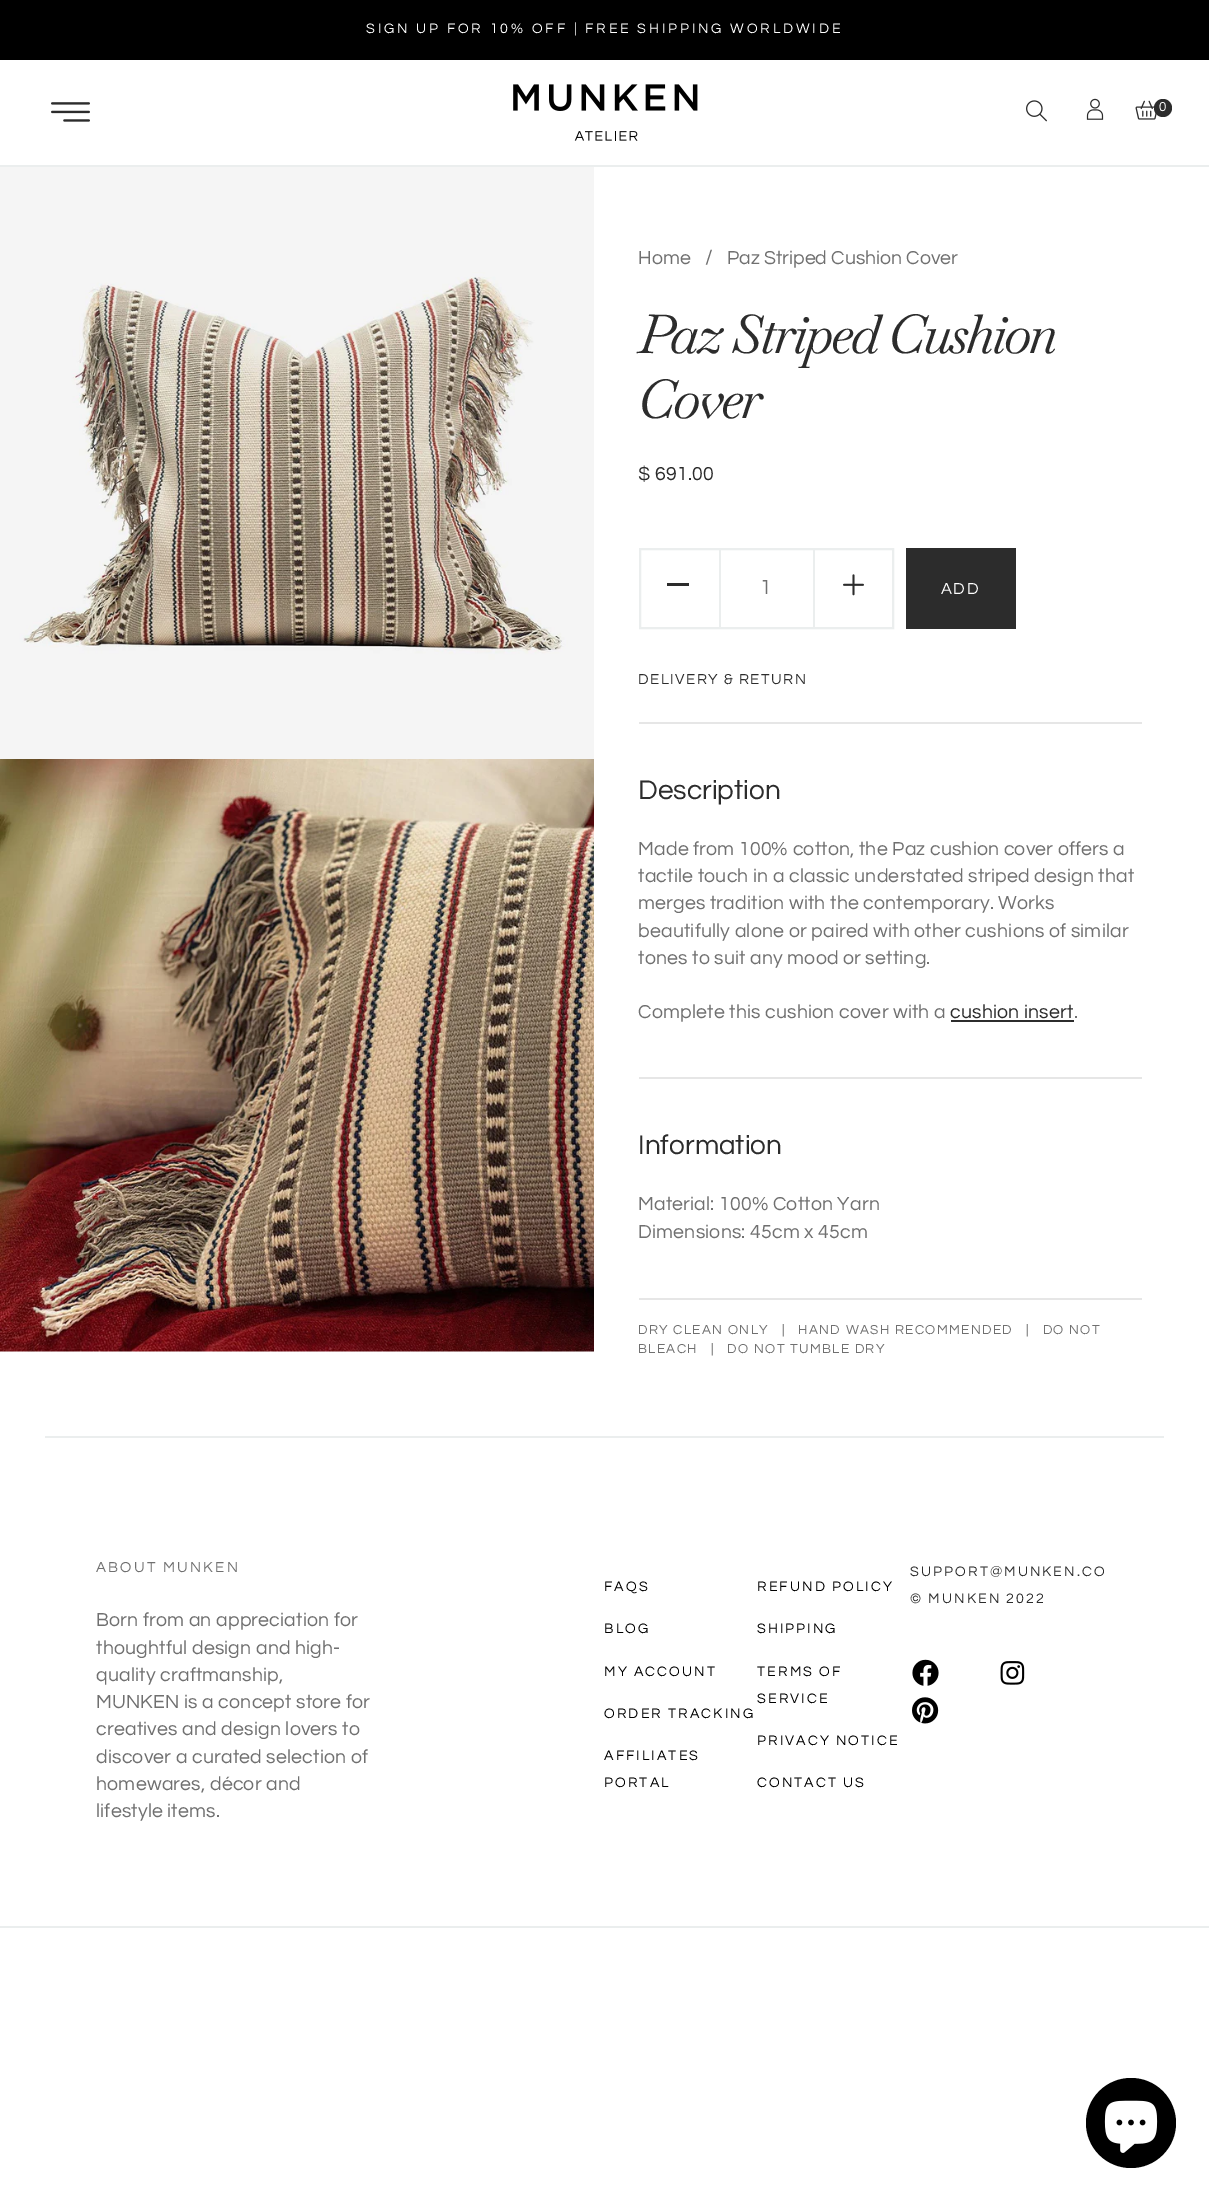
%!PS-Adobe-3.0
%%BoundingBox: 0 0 1209 2199
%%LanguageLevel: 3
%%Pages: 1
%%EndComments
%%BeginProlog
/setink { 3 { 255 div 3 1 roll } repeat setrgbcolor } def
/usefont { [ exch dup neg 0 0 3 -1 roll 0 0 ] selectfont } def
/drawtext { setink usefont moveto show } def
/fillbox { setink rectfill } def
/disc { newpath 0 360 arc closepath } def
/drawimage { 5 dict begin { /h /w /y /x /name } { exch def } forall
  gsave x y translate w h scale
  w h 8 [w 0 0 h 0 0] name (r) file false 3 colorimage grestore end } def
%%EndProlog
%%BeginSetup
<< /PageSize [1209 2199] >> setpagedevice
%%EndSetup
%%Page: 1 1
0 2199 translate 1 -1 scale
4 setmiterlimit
0 0 1209 2199 255 255 255 fillbox
0 165 1209 2 235 238 238 fillbox
0 0 1209 60 0 0 0 fillbox
/Questrial-Regular 14.25 usefont
255 255 255 setink
366 33 moveto 2.85 0 (SIGN UP FOR 10% OFF | FREE SHIPPING WORLDWIDE) ashow
(assets/img1.rgb) 51 102 39 20 drawimage
(assets/img2.rgb) 513 84 185 57 drawimage
(assets/img3.rgb) 1026 100 21 22 drawimage
(assets/img4.rgb) 1086 98 18 22 drawimage
(assets/img5.rgb) 1135 100 22 20 drawimage
44 44 44 setink
1163 108 9 disc fill
(0) 1159 111 /Questrial-Regular 13.5 255 255 255 drawtext
(assets/img6.rgb) 0 167 594 592 drawimage
(assets/img7.rgb) 0 759 594 593 drawimage
(Home) 638 264 /Questrial-Regular 19.5 112 112 112 drawtext
(/) 705 264 /Questrial-Regular 21 112 112 112 drawtext
(Paz Striped Cushion Cover) 727 264 /Questrial-Regular 19.5 112 112 112 drawtext
/Baskervville-Italic 54 usefont
44 44 44 setink
638 353 moveto -2.75 0 (Paz Striped Cushion) ashow
638 418 moveto -2.75 0 (Cover) ashow
/Questrial-Regular 19.5 usefont
638 480 moveto 0.2 0 ($ 691.00) ashow
235 238 238 setink
2 setlinewidth
640 549 253 79 rectstroke
719 548 2 81 235 238 238 fillbox
667 583 22 3 44 44 44 fillbox
(1) 760 594 /Questrial-Regular 21 112 112 112 drawtext
813 548 2 81 235 238 238 fillbox
(assets/img8.rgb) 843 574 21 22 drawimage
906 548 110 81 44 44 44 fillbox
/Questrial-Regular 16.5 usefont
255 255 255 setink
941 594 moveto 1.5 0 (ADD) ashow
/Questrial-Regular 15 usefont
44 44 44 setink
638 684 moveto 1.5 0 (DELIVERY & RETURN) ashow
639 722 503 2 230 230 230 fillbox
(Description) 638 799 /Questrial-Regular 28 44 44 44 drawtext
/Questrial-Regular 19.5 usefont
112 112 112 setink
638 855 moveto 0.2 0 (Made from 100% cotton, the Paz cushion cover offers a) ashow
638 882 moveto 0.2 0 (tactile touch in a classic understated striped design that) ashow
638 909 moveto 0.2 0 (merges tradition with the contemporary. Works) ashow
638 937 moveto 0.2 0 (beautifully alone or paired with other cushions of similar) ashow
638 964 moveto 0.2 0 (tones to suit any mood or setting.) ashow
638 1018 moveto 0.2 0 (Complete this cushion cover with a) ashow
44 44 44 setink
950 1018 moveto 0.2 0 (cushion insert) ashow
951 1020 123 2 44 44 44 fillbox
112 112 112 setink
1074 1018 moveto 0.2 0 (.) ashow
639 1077 503 2 230 230 230 fillbox
(Information) 638 1154 /Questrial-Regular 28 44 44 44 drawtext
/Questrial-Regular 19.5 usefont
112 112 112 setink
638 1210 moveto 0.2 0 (Material: 100% Cotton Yarn) ashow
638 1238 moveto 0.2 0 (Dimensions: 45cm x 45cm) ashow
639 1298 503 2 230 230 230 fillbox
/Questrial-Regular 13.5 usefont
112 112 112 setink
638 1334 moveto 1.35 0 (DRY CLEAN ONLY   |   HAND WASH RECOMMENDED   |   DO NOT) ashow
638 1353 moveto 1.35 0 (BLEACH   |   DO NOT TUMBLE DRY) ashow
0 1926 1209 2 235 238 238 fillbox
45 1436 1119 2 235 238 238 fillbox
/Questrial-Regular 15 usefont
112 112 112 setink
96 1572 moveto 2.25 0 (ABOUT MUNKEN) ashow
/Questrial-Regular 19.5 usefont
96 1626 moveto 0.2 0 (Born from an appreciation for) ashow
96 1654 moveto 0.2 0 (thoughtful design and high-) ashow
96 1681 moveto 0.2 0 (quality craftmanship,) ashow
96 1708 moveto 0.2 0 (MUNKEN is a concept store for) ashow
96 1735 moveto 0.2 0 (creatives and design lovers to) ashow
96 1763 moveto 0.2 0 (discover a curated selection of) ashow
96 1790 moveto 0.2 0 (homewares, décor and) ashow
96 1817 moveto 0.2 0 (lifestyle items.) ashow
/Questrial-Regular 14.25 usefont
0 0 0 setink
604 1591 moveto 2.1 0 (FAQS) ashow
604 1633 moveto 2.1 0 (BLOG) ashow
604 1676 moveto 2.1 0 (MY ACCOUNT) ashow
604 1718 moveto 2.1 0 (ORDER TRACKING) ashow
604 1760 moveto 2.1 0 (AFFILIATES) ashow
604 1787 moveto 2.1 0 (PORTAL) ashow
757 1591 moveto 2.1 0 (REFUND POLICY) ashow
757 1633 moveto 2.1 0 (SHIPPING) ashow
757 1676 moveto 2.1 0 (TERMS OF) ashow
757 1703 moveto 2.1 0 (SERVICE) ashow
757 1745 moveto 2.1 0 (PRIVACY NOTICE) ashow
757 1787 moveto 2.1 0 (CONTACT US) ashow
44 44 44 setink
910 1576 moveto 2.1 0 (SUPPORT@MUNKEN.CO) ashow
910 1603 moveto 2.1 0 (© MUNKEN 2022) ashow
(assets/img9.rgb) 912 1659 27 27 drawimage
(assets/img10.rgb) 1000 1661 25 24 drawimage
(assets/img11.rgb) 912 1697 27 27 drawimage
0 0 0 setink
1131 2123 45 disc fill
(assets/img12.rgb) 1104 2100 54 53 drawimage
showpage
%%EOF
